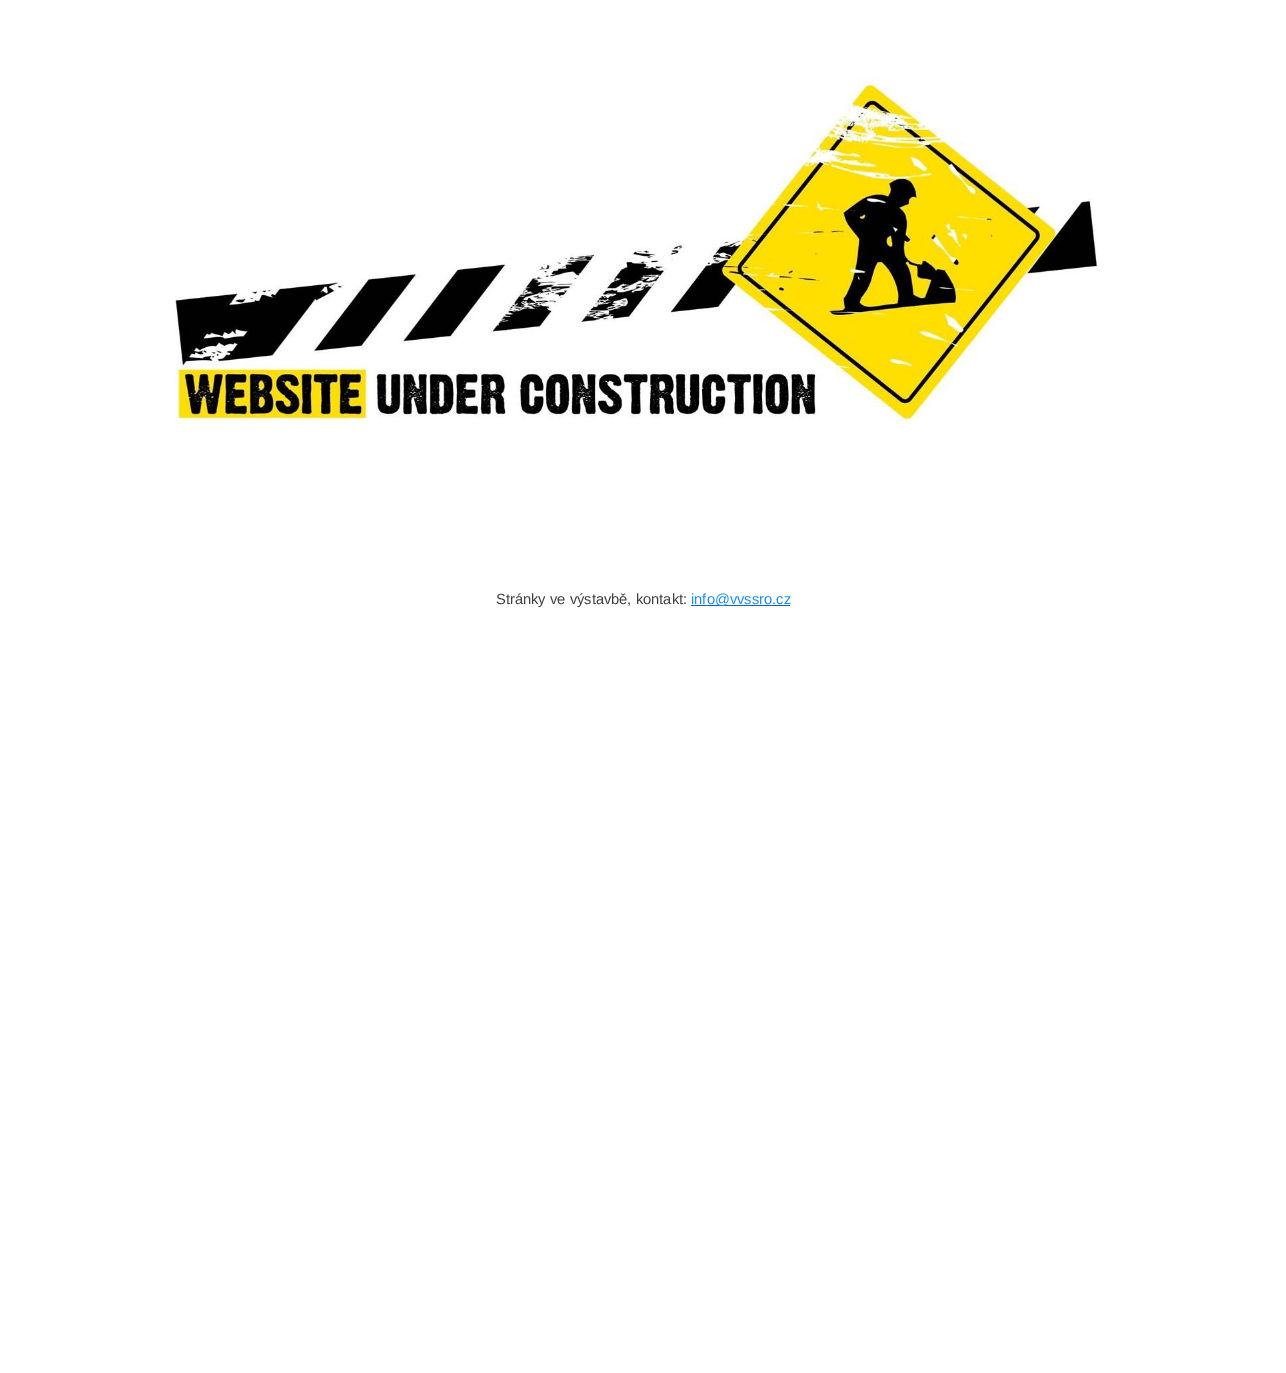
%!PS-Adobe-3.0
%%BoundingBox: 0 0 1286 1373
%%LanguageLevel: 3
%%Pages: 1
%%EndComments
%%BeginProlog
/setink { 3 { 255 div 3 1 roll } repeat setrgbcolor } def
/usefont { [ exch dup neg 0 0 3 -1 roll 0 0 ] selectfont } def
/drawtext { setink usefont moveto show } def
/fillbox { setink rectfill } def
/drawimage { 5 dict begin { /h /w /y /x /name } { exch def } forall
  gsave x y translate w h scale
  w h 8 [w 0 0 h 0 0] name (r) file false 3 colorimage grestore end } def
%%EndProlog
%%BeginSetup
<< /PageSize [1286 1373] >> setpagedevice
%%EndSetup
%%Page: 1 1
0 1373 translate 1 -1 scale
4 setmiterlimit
0 0 1286 1373 255 255 255 fillbox
(assets/img1.rgb) 175 76 924 350 drawimage
(Stránky ve výstavbě, kontakt:) 496 604 /LiberationSans-Regular 14.7 64 64 64 drawtext
691 605 99 1 5 99 193 fillbox
(info@vvssro.cz) 691 604 /LiberationSans-Regular 14.7 27 138 249 drawtext
showpage
%%EOF
